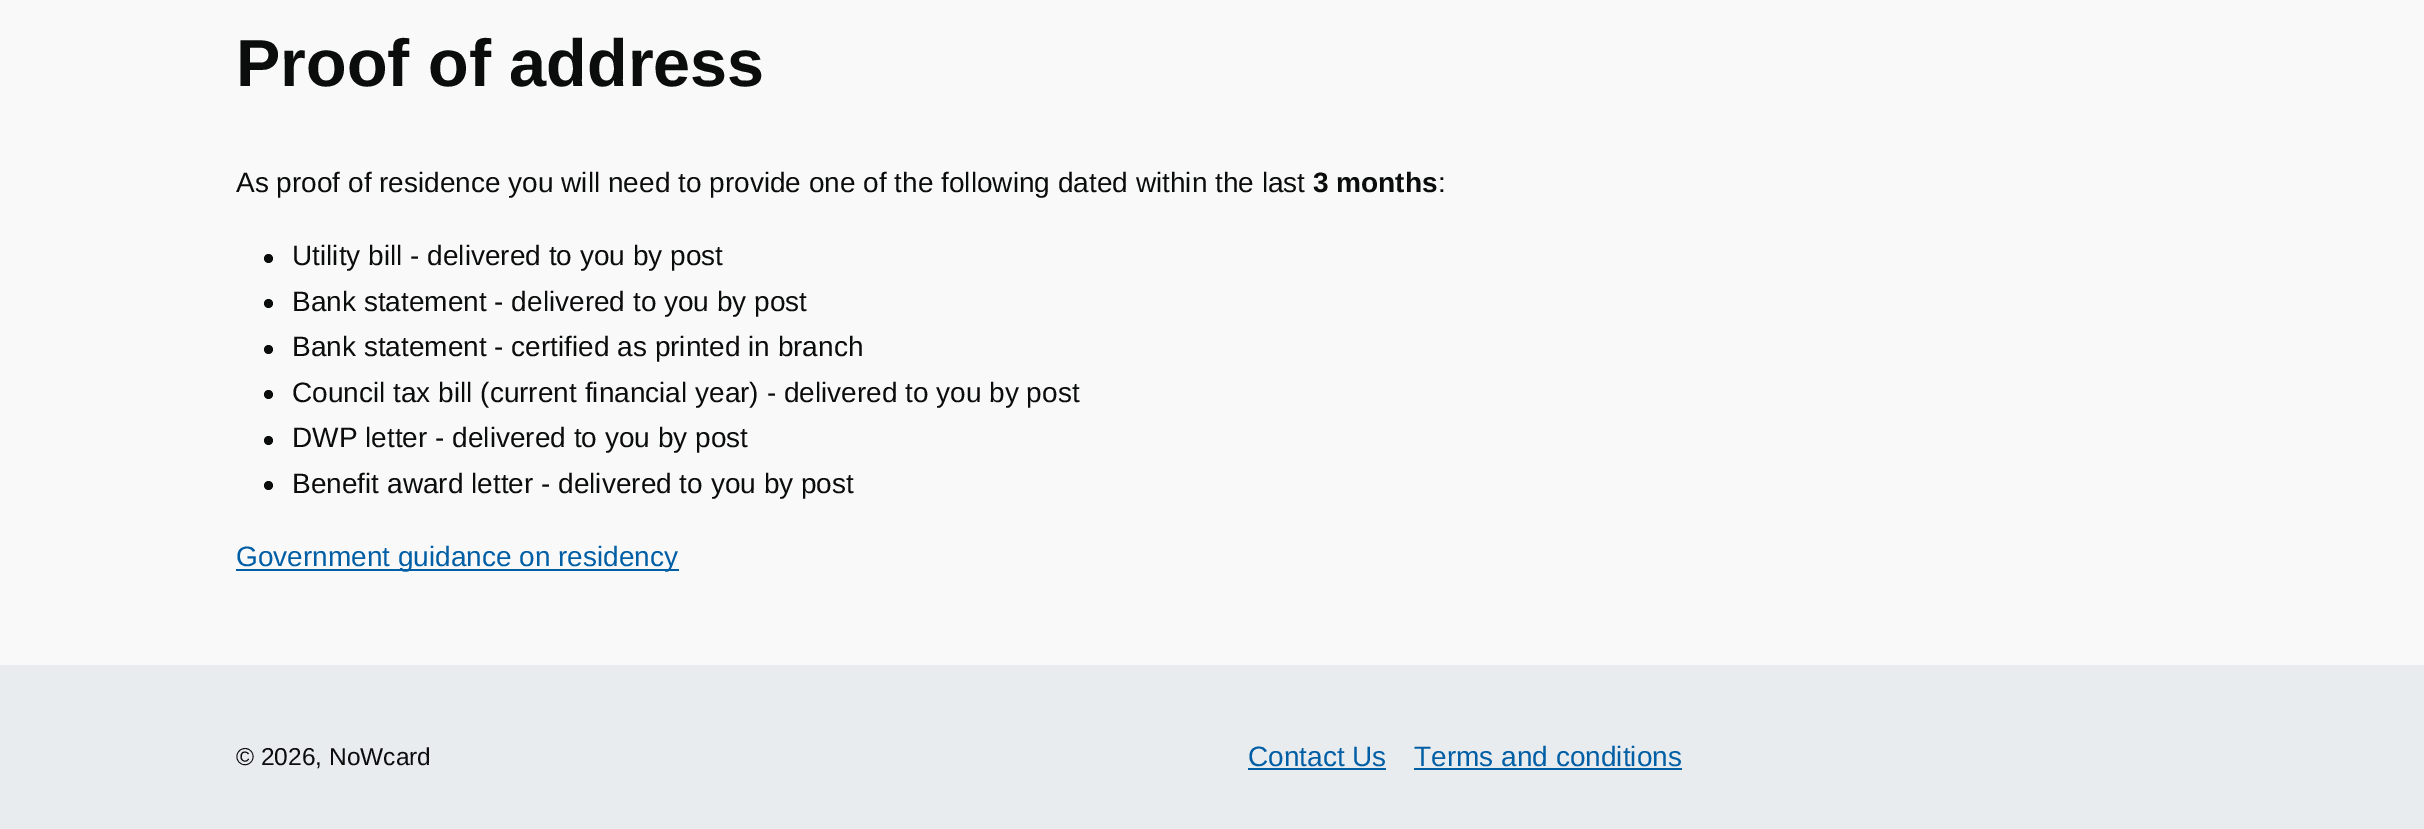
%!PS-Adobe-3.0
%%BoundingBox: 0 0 2424 829
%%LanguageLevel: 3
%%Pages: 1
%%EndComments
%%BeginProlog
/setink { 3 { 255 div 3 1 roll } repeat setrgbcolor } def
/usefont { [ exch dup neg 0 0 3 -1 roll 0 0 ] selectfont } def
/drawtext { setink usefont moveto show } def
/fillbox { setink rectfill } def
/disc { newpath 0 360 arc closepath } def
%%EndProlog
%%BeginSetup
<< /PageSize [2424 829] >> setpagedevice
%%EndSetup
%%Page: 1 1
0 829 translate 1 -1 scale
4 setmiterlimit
0 0 2424 829 249 249 249 fillbox
(Proof of address) 236 86 /LiberationSans-Bold 66.5 11 12 12 drawtext
(As proof of residence you will need to provide one of the following dated within the last) 236 192 /LiberationSans-Regular 28 11 12 12 drawtext
(3 months) 1313 192 /LiberationSans-Bold 28 11 12 12 drawtext
(:) 1438 192 /LiberationSans-Regular 28 11 12 12 drawtext
268.5 258.5 4.5 disc fill
(Utility bill - delivered to you by post) 292 265 /LiberationSans-Regular 28 11 12 12 drawtext
268.5 303.5 4.5 disc fill
(Bank statement - delivered to you by post) 292 311 /LiberationSans-Regular 28 11 12 12 drawtext
268.5 349.5 4.5 disc fill
(Bank statement - certified as printed in branch) 292 356 /LiberationSans-Regular 28 11 12 12 drawtext
268.5 394.5 4.5 disc fill
(Council tax bill \(current financial year\) - delivered to you by post) 292 402 /LiberationSans-Regular 28 11 12 12 drawtext
268.5 440.5 4.5 disc fill
(DWP letter - delivered to you by post) 292 447 /LiberationSans-Regular 28 11 12 12 drawtext
268.5 485.5 4.5 disc fill
(Benefit award letter - delivered to you by post) 292 493 /LiberationSans-Regular 28 11 12 12 drawtext
236 569 443 2 0 94 165 fillbox
(Government guidance on residency) 236 566 /LiberationSans-Regular 28 0 94 165 drawtext
0 665 2424 164 233 236 239 fillbox
(© 2026, NoWcard) 236 765 /LiberationSans-Regular 24.5 11 12 12 drawtext
(Contact Us) 1248 766 /LiberationSans-Regular 28 0 94 165 drawtext
1248 768 138 2 0 94 165 fillbox
(Terms and conditions) 1414 766 /LiberationSans-Regular 28 0 94 165 drawtext
1414 768 268 2 0 94 165 fillbox
showpage
%%EOF
